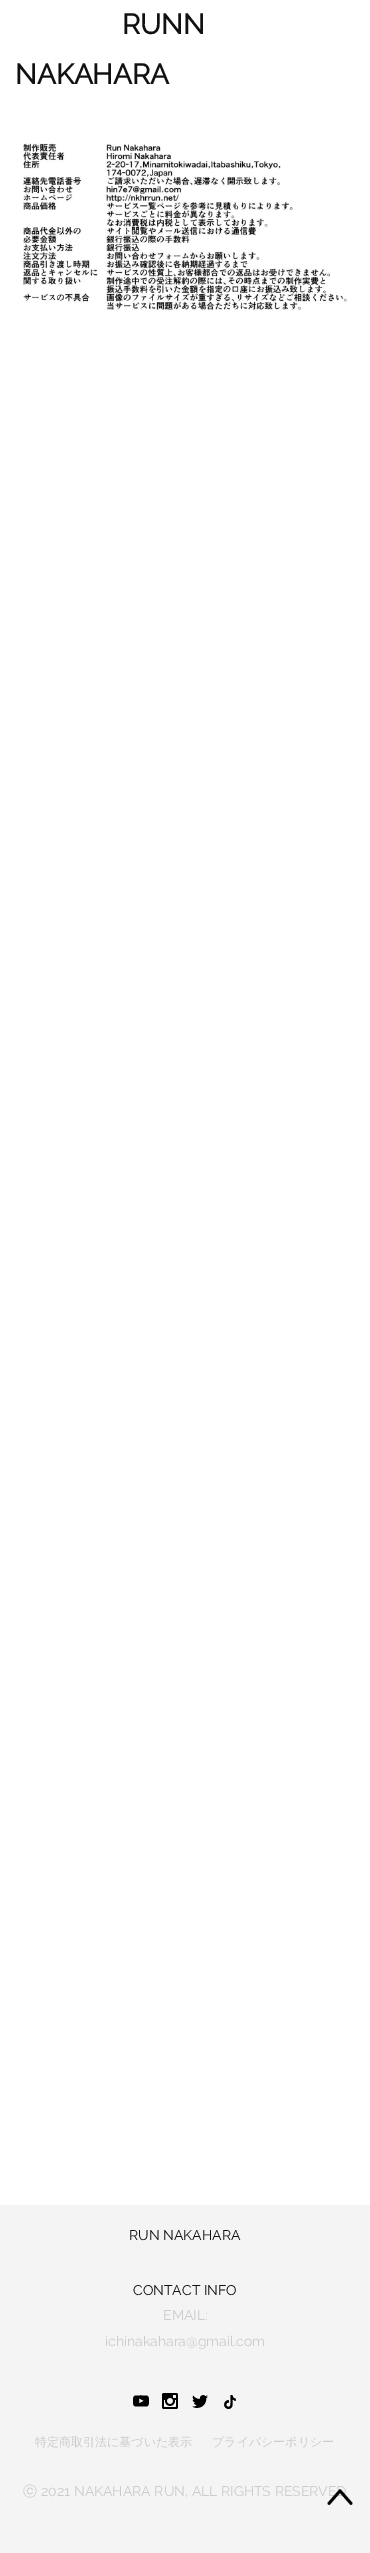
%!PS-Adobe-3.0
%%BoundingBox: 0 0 370 2553
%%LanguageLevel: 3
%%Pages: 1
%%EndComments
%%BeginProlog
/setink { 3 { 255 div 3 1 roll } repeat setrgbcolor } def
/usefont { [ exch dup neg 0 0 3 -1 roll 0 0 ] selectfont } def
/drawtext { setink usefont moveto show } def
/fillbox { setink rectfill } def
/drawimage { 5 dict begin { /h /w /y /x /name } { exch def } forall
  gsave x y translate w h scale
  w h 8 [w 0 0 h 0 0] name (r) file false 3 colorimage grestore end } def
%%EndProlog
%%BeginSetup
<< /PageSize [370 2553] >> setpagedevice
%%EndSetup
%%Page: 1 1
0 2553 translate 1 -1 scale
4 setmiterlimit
0 0 370 2553 255 255 255 fillbox
(RUNN) 122 34 /Raleway-Bold 28 17 17 17 drawtext
(NAKAHARA) 15 84 /Raleway-Bold 28 17 17 17 drawtext
(assets/img1.rgb) 23 143 324 168 drawimage
0 2205 370 348 244 244 244 fillbox
(RUN NAKAHARA) 129 2240 /Raleway-Regular 14 17 17 17 drawtext
(CONTACT INFO) 133 2295 /Raleway-Regular 14 17 17 17 drawtext
(EMAIL:) 163 2320 /Raleway-Regular 14 204 204 204 drawtext
(ichinakahara@gmail.com) 105 2346 /Raleway-Regular 14 204 204 204 drawtext
(assets/img2.rgb) 133 2395 16 12 drawimage
(assets/img3.rgb) 162 2393 16 16 drawimage
(assets/img4.rgb) 192 2395 16 13 drawimage
(assets/img5.rgb) 224 2395 12 14 drawimage
(特定商取引法に基づいた表示) 35 2446 /WenQuanYiZenHei-Medium 12 204 204 204 drawtext
(プライバシーポリシー) 212 2446 /WenQuanYiZenHei-Medium 12 204 204 204 drawtext
(ⓒ) 23 2496 /WenQuanYiZenHei-Medium 14 204 204 204 drawtext
(2021 NAKAHARA RUN, ALL RIGHTS RESERVED) 41 2496 /Raleway-Regular 14 204 204 204 drawtext
(assets/img6.rgb) 327 2489 26 16 drawimage
showpage
%%EOF
